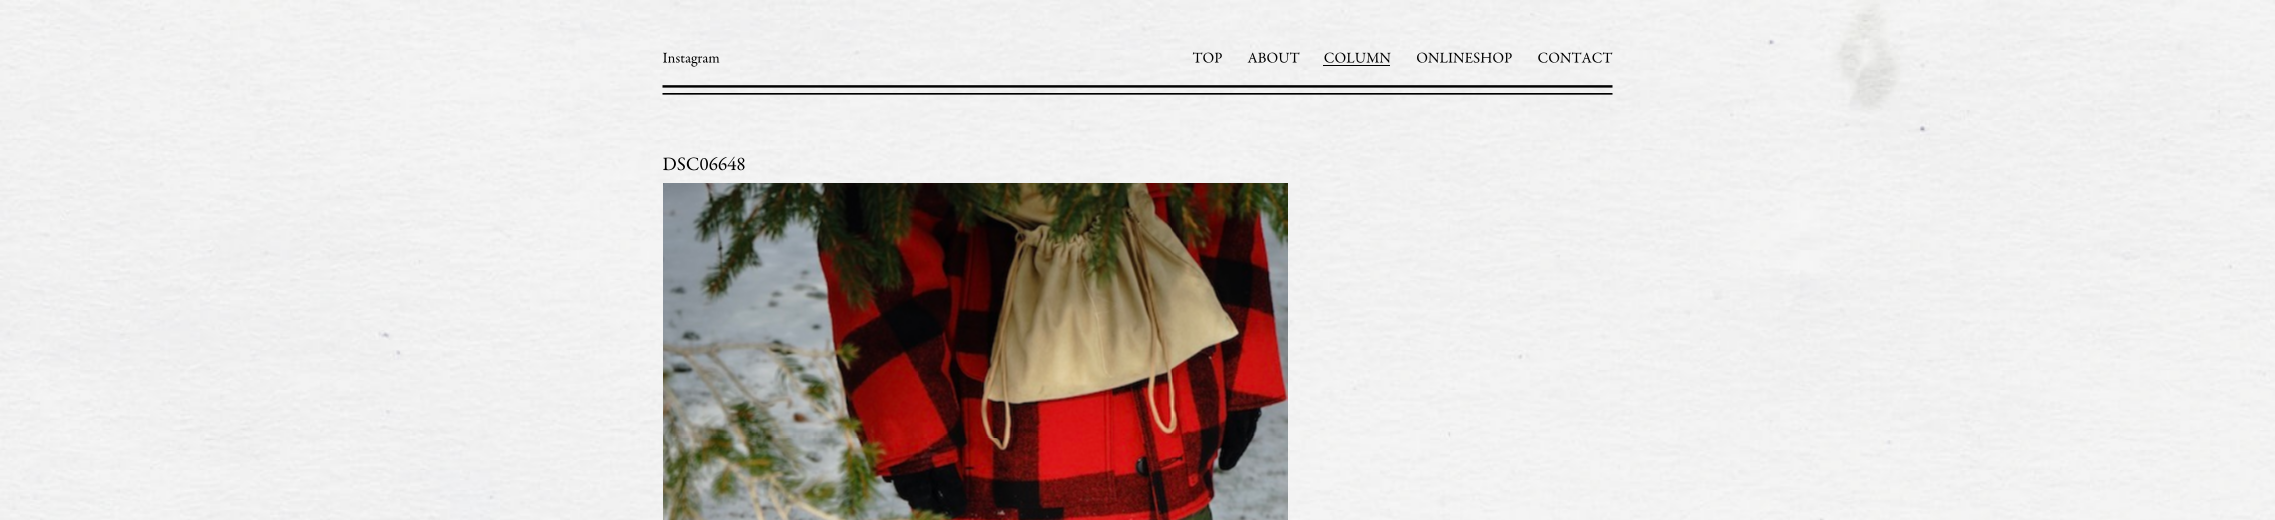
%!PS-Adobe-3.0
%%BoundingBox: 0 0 2275 520
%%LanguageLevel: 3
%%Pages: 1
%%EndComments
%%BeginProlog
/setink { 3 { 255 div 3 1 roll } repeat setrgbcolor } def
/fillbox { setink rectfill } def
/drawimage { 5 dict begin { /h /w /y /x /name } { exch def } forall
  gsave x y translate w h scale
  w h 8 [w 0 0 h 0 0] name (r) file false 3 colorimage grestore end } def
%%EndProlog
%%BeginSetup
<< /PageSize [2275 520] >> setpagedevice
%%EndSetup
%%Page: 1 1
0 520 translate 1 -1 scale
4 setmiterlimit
0 0 2275 520 255 255 255 fillbox
(assets/img1.rgb) 0 0 2275 520 drawimage
(assets/img2.rgb) 662 85 951 10 drawimage
(assets/img3.rgb) 663 52 57 15 drawimage
(assets/img4.rgb) 1192 52 30 11 drawimage
(assets/img5.rgb) 1247 52 53 11 drawimage
(assets/img6.rgb) 1324 52 67 11 drawimage
1323 65 67 1 0 0 0 fillbox
(assets/img7.rgb) 1417 52 95 11 drawimage
(assets/img8.rgb) 1538 52 75 11 drawimage
(assets/img9.rgb) 663 156 82 15 drawimage
(assets/img10.rgb) 663 183 625 337 drawimage
showpage
%%EOF
